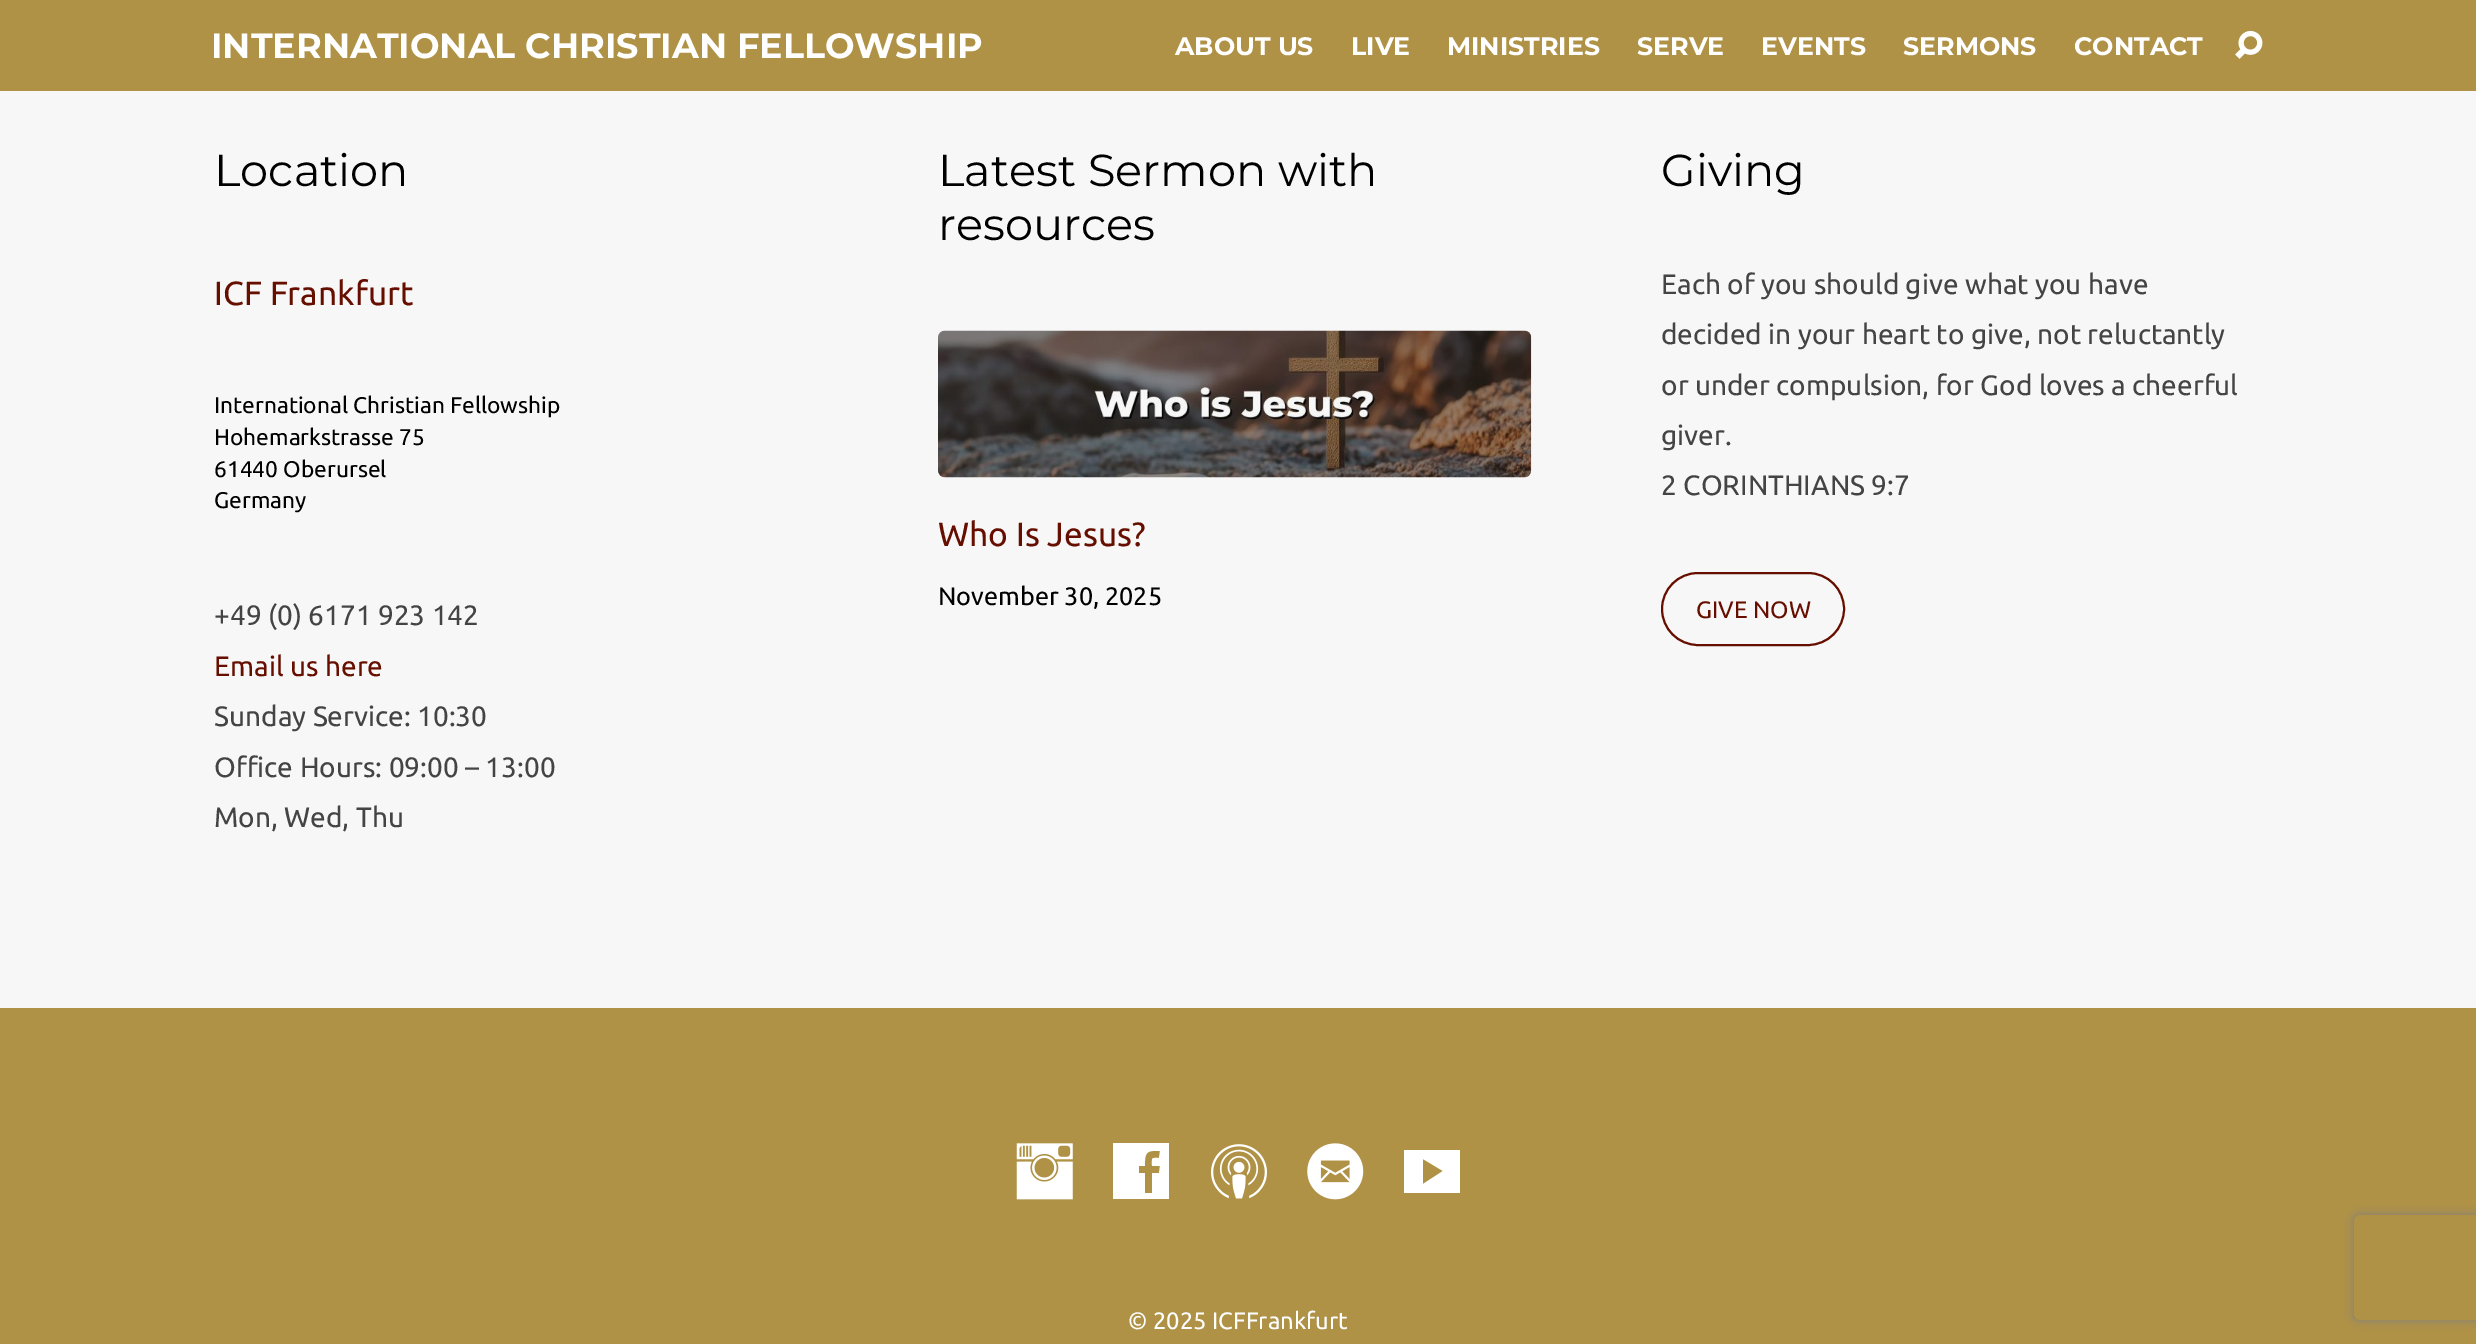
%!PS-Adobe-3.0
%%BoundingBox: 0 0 2476 1344
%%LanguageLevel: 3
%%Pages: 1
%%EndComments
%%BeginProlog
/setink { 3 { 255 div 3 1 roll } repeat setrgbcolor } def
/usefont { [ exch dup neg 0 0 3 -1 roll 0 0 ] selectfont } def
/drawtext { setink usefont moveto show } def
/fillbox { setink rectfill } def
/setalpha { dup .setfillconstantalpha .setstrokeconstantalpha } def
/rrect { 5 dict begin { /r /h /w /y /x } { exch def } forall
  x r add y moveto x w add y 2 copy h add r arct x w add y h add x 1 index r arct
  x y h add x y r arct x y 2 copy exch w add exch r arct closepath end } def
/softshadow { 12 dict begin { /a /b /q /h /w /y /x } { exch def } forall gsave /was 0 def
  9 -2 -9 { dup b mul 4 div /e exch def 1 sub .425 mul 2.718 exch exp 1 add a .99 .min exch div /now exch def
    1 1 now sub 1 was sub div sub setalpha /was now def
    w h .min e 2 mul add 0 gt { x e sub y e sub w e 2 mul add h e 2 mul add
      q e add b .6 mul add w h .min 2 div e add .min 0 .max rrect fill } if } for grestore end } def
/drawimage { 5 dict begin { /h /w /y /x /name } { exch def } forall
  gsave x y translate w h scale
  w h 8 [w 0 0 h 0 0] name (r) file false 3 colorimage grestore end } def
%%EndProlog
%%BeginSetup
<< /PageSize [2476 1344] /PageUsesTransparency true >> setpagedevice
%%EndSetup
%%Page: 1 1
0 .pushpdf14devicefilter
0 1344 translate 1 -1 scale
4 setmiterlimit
0 0 2476 1344 247 247 247 fillbox
0 0 2476 91 175 146 70 fillbox
(INTERNATIONAL CHRISTIAN FELLOWSHIP) 211 58 /Montserrat-Bold 35 255 255 255 drawtext
(ABOUT US) 1175 55 /Montserrat-Bold 25.25 255 255 255 drawtext
(LIVE) 1351 55 /Montserrat-Bold 25.25 255 255 255 drawtext
(MINISTRIES) 1447 55 /Montserrat-Bold 25.25 255 255 255 drawtext
(SERVE) 1637 55 /Montserrat-Bold 25.25 255 255 255 drawtext
(EVENTS) 1761 55 /Montserrat-Bold 25.25 255 255 255 drawtext
(SERMONS) 1903 55 /Montserrat-Bold 25.25 255 255 255 drawtext
(CONTACT) 2074 55 /Montserrat-Bold 25.25 255 255 255 drawtext
(assets/img1.rgb) 2235 30 28 29 drawimage
(Location) 214 186 /Montserrat-Regular 44.75 0 0 0 drawtext
(ICF Frankfurt) 214 305 /Ubuntu-Regular 33.5 102 15 0 drawtext
(International Christian Fellowship) 214 413 /Ubuntu-Regular 22.7 0 0 0 drawtext
(Hohemarkstrasse 75) 214 445 /Ubuntu-Regular 22.7 0 0 0 drawtext
(61440 Oberursel) 214 477 /Ubuntu-Regular 22.7 0 0 0 drawtext
(Germany) 214 508 /Ubuntu-Regular 22.7 0 0 0 drawtext
(+49 \(0\) 6171 923 142) 214 625 /Ubuntu-Regular 28 68 68 68 drawtext
(Email us here) 214 676 /Ubuntu-Regular 28 102 15 0 drawtext
(Sunday Service: 10:30) 214 726 /Ubuntu-Regular 28 68 68 68 drawtext
(Office Hours: 09:00 – 13:00) 214 777 /Ubuntu-Regular 28 68 68 68 drawtext
(Mon, Wed, Thu) 214 827 /Ubuntu-Regular 28 68 68 68 drawtext
(Latest Sermon with) 938 186 /Montserrat-Regular 44.75 0 0 0 drawtext
(resources) 938 240 /Montserrat-Regular 44.75 0 0 0 drawtext
(assets/img2.rgb) 938 330 594 148 drawimage
(Who Is Jesus?) 938 546 /Ubuntu-Regular 33.5 102 15 0 drawtext
(November 30, 2025) 938 605 /Ubuntu-Regular 25.25 0 0 0 drawtext
(Giving) 1661 186 /Montserrat-Regular 44.75 0 0 0 drawtext
(Each of you should give what you have) 1661 294 /Ubuntu-Regular 28 68 68 68 drawtext
(decided in your heart to give, not reluctantly) 1661 344 /Ubuntu-Regular 28 68 68 68 drawtext
(or under compulsion, for God loves a cheerful) 1661 395 /Ubuntu-Regular 28 68 68 68 drawtext
(giver.) 1661 445 /Ubuntu-Regular 28 68 68 68 drawtext
(2 CORINTHIANS 9:7) 1661 495 /Ubuntu-Regular 28 68 68 68 drawtext
102 15 0 setink
2 setlinewidth
1662 573 182 72 36 rrect stroke
(GIVE NOW) 1696 618 /Ubuntu-Regular 23.75 102 15 0 drawtext
0 1008 2476 336 175 146 70 fillbox
(assets/img3.rgb) 1016 1143 57 57 drawimage
255 255 255 setink
1113 1143 moveto 1169 1143 lineto 1169 1199 lineto 1113 1199 lineto closepath 1153 1151 moveto 1144 1151 1145 1159 1145 1166 curveto 1139 1166 lineto 1139 1173 lineto 1145 1173 lineto 1145 1193 lineto 1152 1193 lineto 1152 1173 lineto 1159 1173 lineto 1160 1166 lineto 1152 1166 lineto 1152 1157 1151 1158 1159 1158 curveto 1160 1151 lineto closepath fill
(assets/img4.rgb) 1211 1144 56 55 drawimage
(assets/img5.rgb) 1307 1143 57 57 drawimage
1460 1193 moveto 1404 1193 lineto 1404 1150 lineto 1460 1150 lineto closepath 1423 1184 moveto 1443 1171 lineto 1423 1159 lineto closepath fill
(© 2025 ICFFrankfurt) 1128 1329 /Ubuntu-Regular 23.75 255 255 255 drawtext
gsave
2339 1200 moveto 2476 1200 lineto 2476 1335 lineto 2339 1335 lineto closepath 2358 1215 moveto 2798 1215 lineto 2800 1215 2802 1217 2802 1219 curveto 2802 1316 lineto 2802 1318 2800 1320 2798 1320 curveto 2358 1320 lineto 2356 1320 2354 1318 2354 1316 curveto 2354 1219 lineto 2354 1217 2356 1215 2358 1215 curveto closepath eoclip newpath
128 128 128 setink
2354 1215 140 105 4 4.5 1 softshadow
grestore
.poppdf14devicefilter showpage
%%EOF
